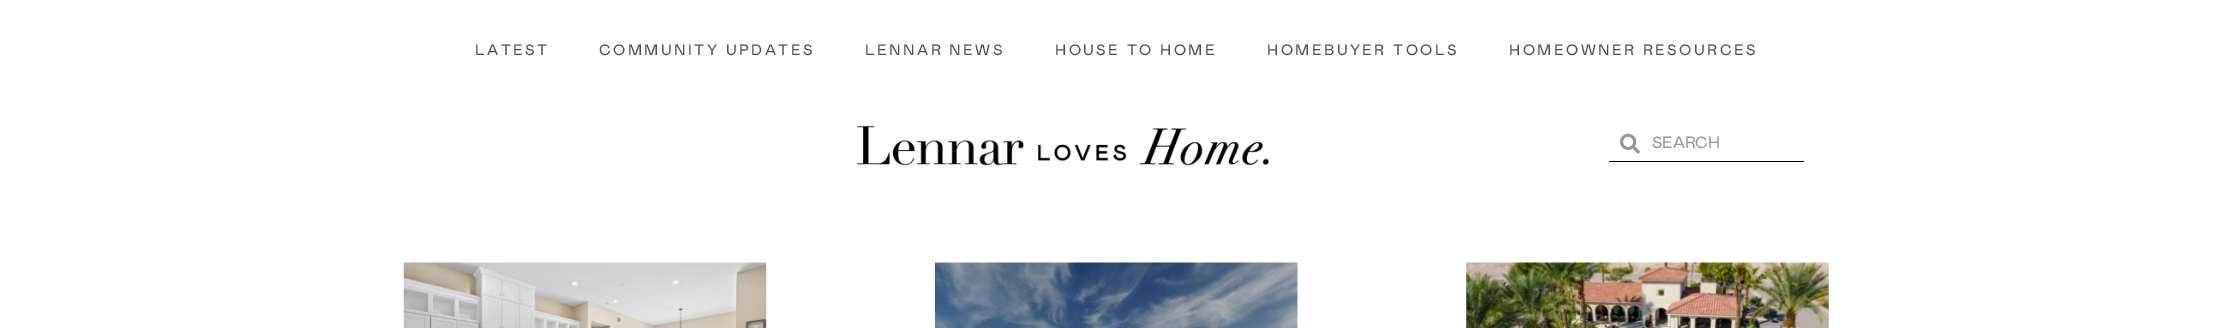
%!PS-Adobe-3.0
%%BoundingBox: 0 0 2232 328
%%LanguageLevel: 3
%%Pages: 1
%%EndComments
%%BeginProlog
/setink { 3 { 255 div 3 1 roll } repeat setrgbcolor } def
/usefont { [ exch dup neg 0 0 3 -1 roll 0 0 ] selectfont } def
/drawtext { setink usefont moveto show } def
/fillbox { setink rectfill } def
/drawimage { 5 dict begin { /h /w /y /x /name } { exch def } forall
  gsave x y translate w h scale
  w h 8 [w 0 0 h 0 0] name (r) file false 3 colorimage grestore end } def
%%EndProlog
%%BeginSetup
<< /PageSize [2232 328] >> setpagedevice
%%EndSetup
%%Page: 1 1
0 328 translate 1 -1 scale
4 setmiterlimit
0 0 2232 328 255 255 255 fillbox
/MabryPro-Regular 15 usefont
83 77 74 setink
475 55 moveto 2.5 0 (LATEST) ashow
599 55 moveto 2.5 0 (COMMUNITY UPDATES) ashow
865 55 moveto 2.5 0 (LENNAR NEWS) ashow
1055 55 moveto 2.5 0 (HOUSE TO HOME) ashow
1267 55 moveto 2.5 0 (HOMEBUYER TOOLS) ashow
1509 55 moveto 2.5 0 (HOMEOWNER RESOURCES) ashow
(assets/img1.rgb) 857 125 413 41 drawimage
1609 161 195 1 0 0 0 fillbox
(assets/img2.rgb) 1620 133 20 21 drawimage
(SEARCH) 1652 148 /MabryPro-Regular 16.25 152 148 146 drawtext
(assets/img3.rgb) 403 262 364 66 drawimage
(assets/img4.rgb) 935 262 363 66 drawimage
(assets/img5.rgb) 1466 262 363 66 drawimage
showpage
%%EOF
